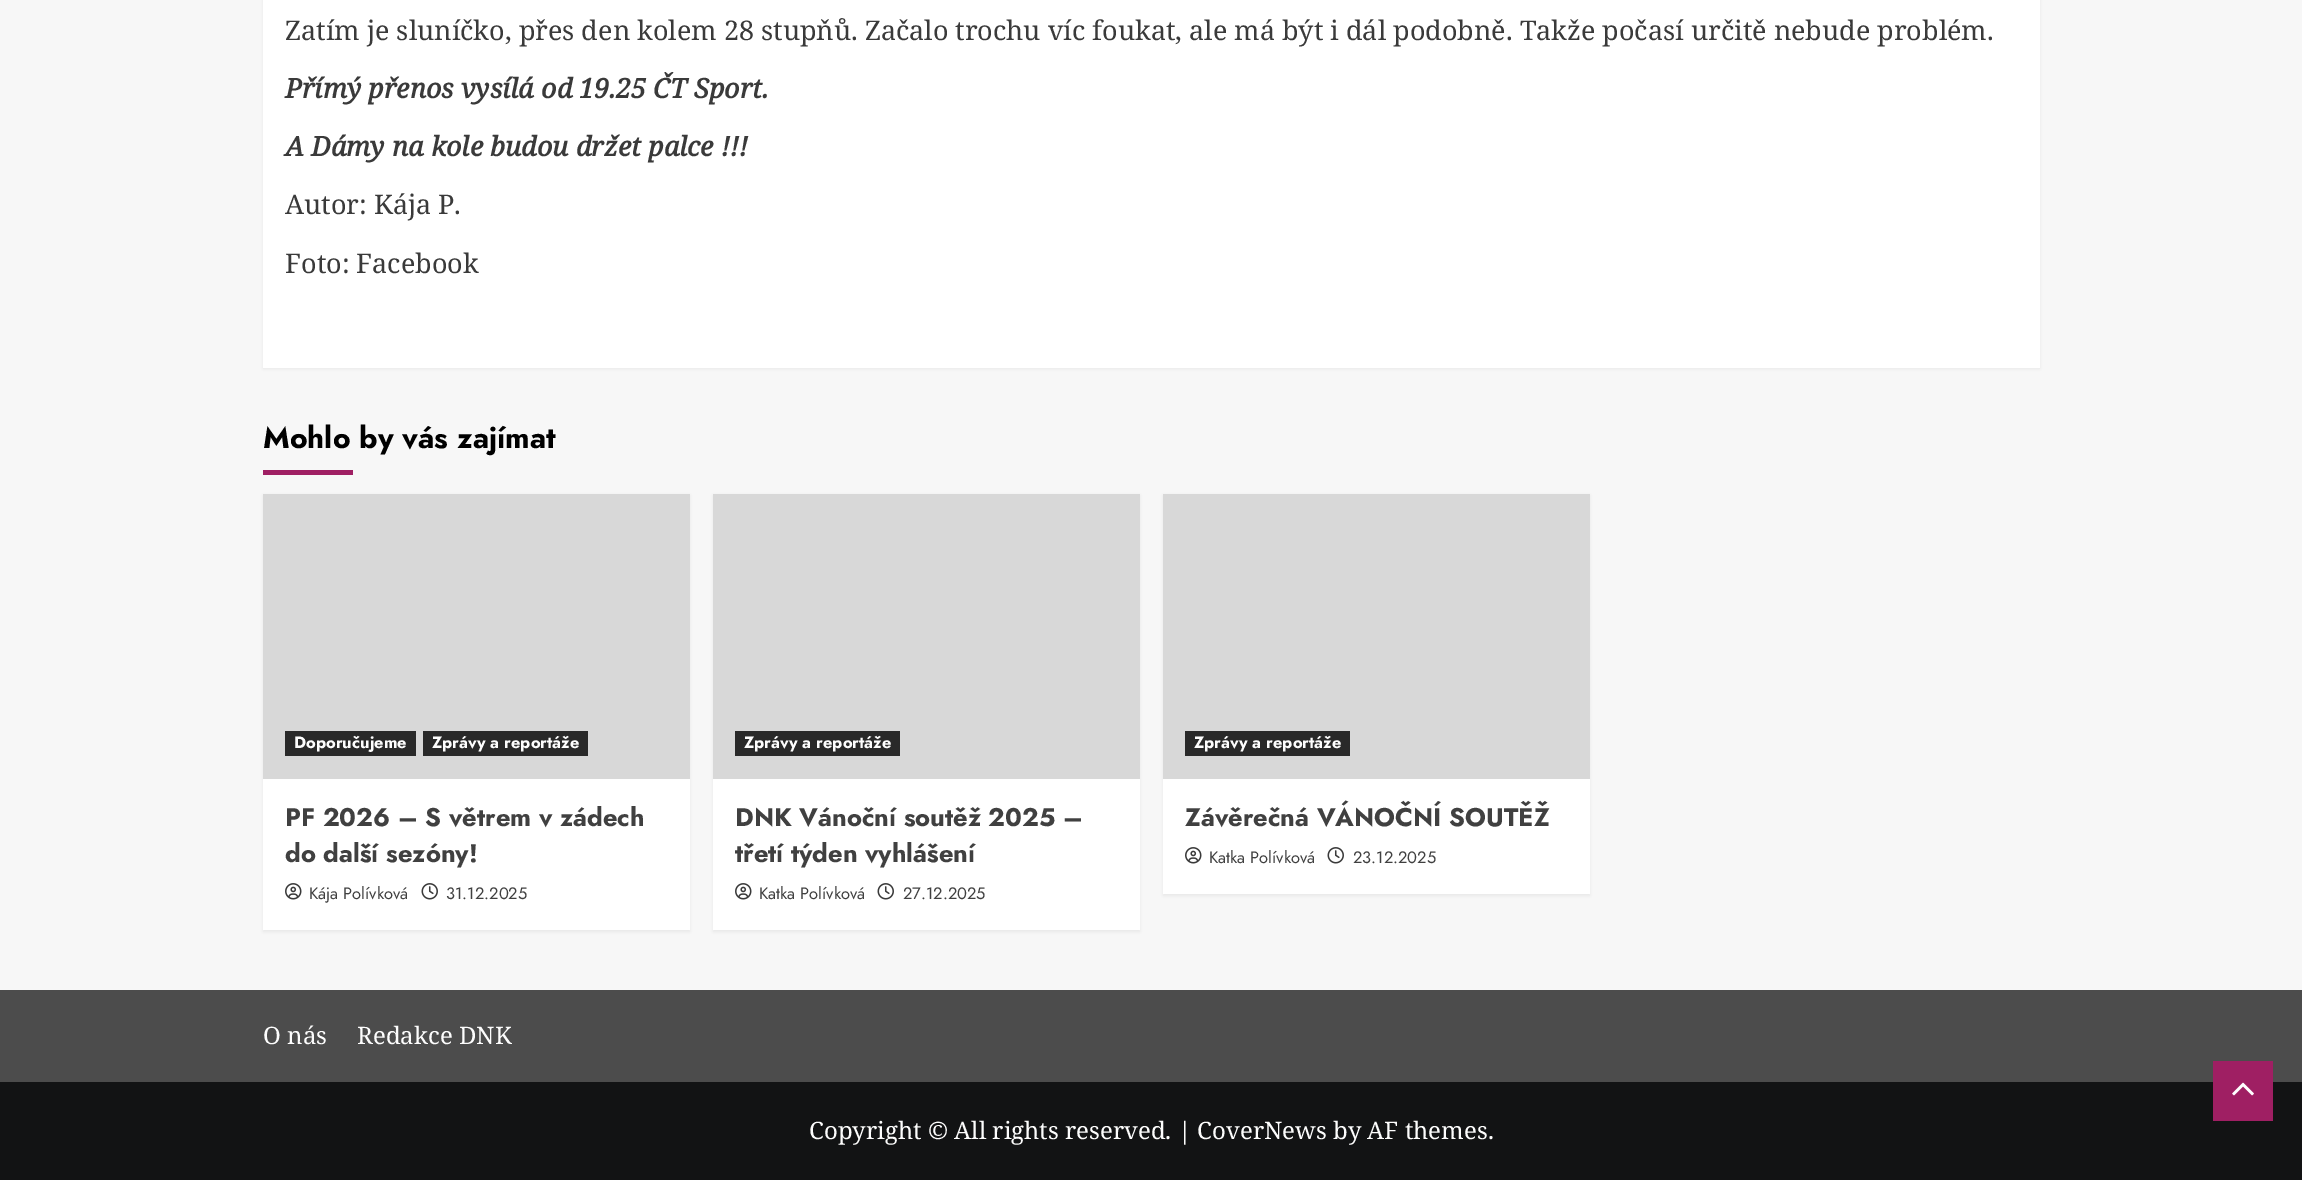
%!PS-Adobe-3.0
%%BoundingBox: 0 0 2302 1180
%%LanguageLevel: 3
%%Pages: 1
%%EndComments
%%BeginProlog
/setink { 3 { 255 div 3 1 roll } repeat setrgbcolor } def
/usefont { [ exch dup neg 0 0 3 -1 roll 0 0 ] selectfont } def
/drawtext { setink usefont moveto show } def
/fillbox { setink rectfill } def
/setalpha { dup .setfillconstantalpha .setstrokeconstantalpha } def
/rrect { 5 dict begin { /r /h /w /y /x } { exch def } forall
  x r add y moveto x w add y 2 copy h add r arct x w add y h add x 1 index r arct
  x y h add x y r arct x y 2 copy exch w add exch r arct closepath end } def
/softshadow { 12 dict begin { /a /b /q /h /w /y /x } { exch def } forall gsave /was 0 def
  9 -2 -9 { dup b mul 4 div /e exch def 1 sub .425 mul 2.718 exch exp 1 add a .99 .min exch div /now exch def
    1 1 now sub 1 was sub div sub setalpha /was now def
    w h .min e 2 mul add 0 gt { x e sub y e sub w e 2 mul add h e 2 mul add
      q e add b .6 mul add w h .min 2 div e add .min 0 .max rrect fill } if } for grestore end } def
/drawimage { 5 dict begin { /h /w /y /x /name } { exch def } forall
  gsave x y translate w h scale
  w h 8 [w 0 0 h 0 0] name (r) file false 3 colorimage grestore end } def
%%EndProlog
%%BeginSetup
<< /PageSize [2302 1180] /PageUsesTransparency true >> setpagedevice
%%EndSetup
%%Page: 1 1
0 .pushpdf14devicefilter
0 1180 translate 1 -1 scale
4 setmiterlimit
0 0 2302 1180 247 247 247 fillbox
0 0 0 setink
263 -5 1777 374 0 1.5 0.05 softshadow
263 0 1777 368 255 255 255 fillbox
(Zatím je sluníčko, přes den kolem 28 stupňů. Začalo trochu víc foukat, ale má být i dál podobně. Takže počasí určitě nebude problém.) 285 40 /NotoSerif-Regular 27 58 58 58 drawtext
(Přímý přenos vysílá od 19.25 ČT Sport.) 285 98 /NotoSerif-BoldItalic 27 58 58 58 drawtext
(A Dámy na kole budou držet palce !!!) 285 156 /NotoSerif-BoldItalic 27 58 58 58 drawtext
(Autor: Kája P.) 285 214 /NotoSerif-Regular 27 58 58 58 drawtext
(Foto: Facebook) 285 273 /NotoSerif-Regular 27 58 58 58 drawtext
(Mohlo by vás zajímat) 263 448 /Jost-Bold 30 0 0 0 drawtext
263 470 90 5 159 31 99 fillbox
0 0 0 setink
263 495 427 437 0 1.5 0.05 softshadow
263 779 427 151 255 255 255 fillbox
263 494 427 285 216 216 216 fillbox
285 731 131 25 41 41 41 fillbox
(Doporučujeme) 294 748 /Jost-Bold 16.5 253 253 253 drawtext
423 731 165 25 41 41 41 fillbox
(Zprávy a reportáže) 432 748 /Jost-Bold 16.5 253 253 253 drawtext
(PF 2026 – S větrem v zádech) 285 826 /Jost-Bold 25.5 64 64 64 drawtext
(do další sezóny!) 285 862 /Jost-Bold 25.5 64 64 64 drawtext
(assets/img1.rgb) 285 883 17 17 drawimage
(Kája Polívková) 309 899 /Jost-Regular 16.5 64 64 64 drawtext
(assets/img2.rgb) 421 883 17 17 drawimage
(31.12.2025) 446 899 /Jost-Regular 16.5 64 64 64 drawtext
0 0 0 setink
713 495 427 437 0 1.5 0.05 softshadow
713 779 427 151 255 255 255 fillbox
713 494 427 285 216 216 216 fillbox
735 731 165 25 41 41 41 fillbox
(Zprávy a reportáže) 744 748 /Jost-Bold 16.5 253 253 253 drawtext
(DNK Vánoční soutěž 2025 –) 735 826 /Jost-Bold 25.5 64 64 64 drawtext
(třetí týden vyhlášení) 735 862 /Jost-Bold 25.5 64 64 64 drawtext
(assets/img1.rgb) 735 883 17 17 drawimage
(Katka Polívková) 759 899 /Jost-Regular 16.5 64 64 64 drawtext
(assets/img2.rgb) 877 883 17 17 drawimage
(27.12.2025) 903 899 /Jost-Regular 16.5 64 64 64 drawtext
0 0 0 setink
1163 495 427 401 0 1.5 0.05 softshadow
1163 779 427 115 255 255 255 fillbox
1163 494 427 285 216 216 216 fillbox
1185 731 165 25 41 41 41 fillbox
(Zprávy a reportáže) 1194 748 /Jost-Bold 16.5 253 253 253 drawtext
(Závěrečná VÁNOČNÍ SOUTĚŽ) 1185 826 /Jost-Bold 25.5 64 64 64 drawtext
(assets/img1.rgb) 1185 847 17 17 drawimage
(Katka Polívková) 1209 863 /Jost-Regular 16.5 64 64 64 drawtext
(assets/img2.rgb) 1327 847 17 17 drawimage
(23.12.2025) 1353 863 /Jost-Regular 16.5 64 64 64 drawtext
0 990 2302 92 76 76 76 fillbox
(O nás) 263 1044 /NotoSerif-Regular 24 253 253 253 drawtext
(Redakce DNK) 357 1044 /NotoSerif-Regular 24 253 253 253 drawtext
0 1082 2302 98 18 19 20 fillbox
(Copyright © All rights reserved. | CoverNews by AF themes.) 809 1139 /NotoSerif-Regular 24 253 253 253 drawtext
2213 1061 60 60 159 31 99 fillbox
(assets/img3.rgb) 2232 1082 22 14 drawimage
.poppdf14devicefilter showpage
%%EOF
